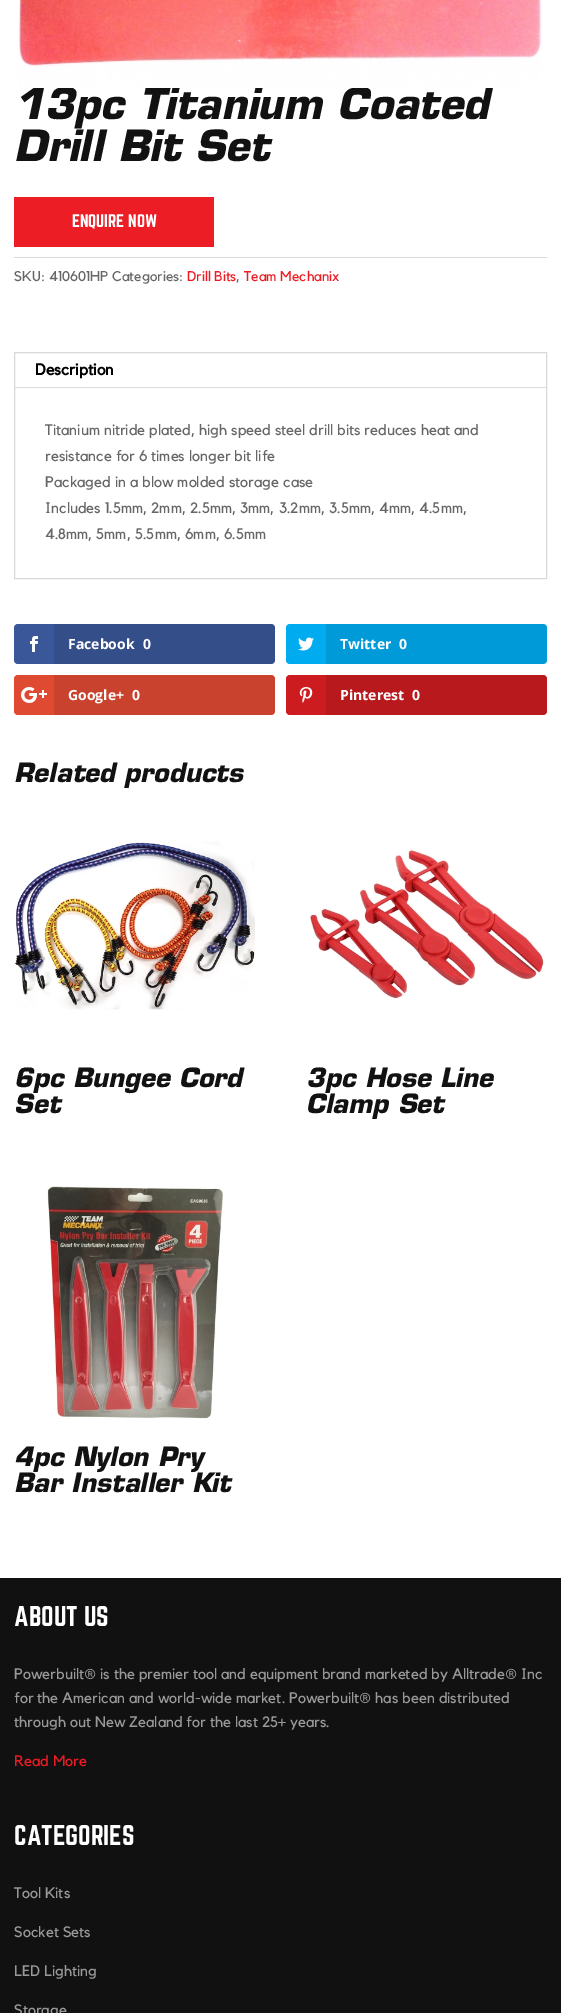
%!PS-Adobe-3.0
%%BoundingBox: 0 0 561 2013
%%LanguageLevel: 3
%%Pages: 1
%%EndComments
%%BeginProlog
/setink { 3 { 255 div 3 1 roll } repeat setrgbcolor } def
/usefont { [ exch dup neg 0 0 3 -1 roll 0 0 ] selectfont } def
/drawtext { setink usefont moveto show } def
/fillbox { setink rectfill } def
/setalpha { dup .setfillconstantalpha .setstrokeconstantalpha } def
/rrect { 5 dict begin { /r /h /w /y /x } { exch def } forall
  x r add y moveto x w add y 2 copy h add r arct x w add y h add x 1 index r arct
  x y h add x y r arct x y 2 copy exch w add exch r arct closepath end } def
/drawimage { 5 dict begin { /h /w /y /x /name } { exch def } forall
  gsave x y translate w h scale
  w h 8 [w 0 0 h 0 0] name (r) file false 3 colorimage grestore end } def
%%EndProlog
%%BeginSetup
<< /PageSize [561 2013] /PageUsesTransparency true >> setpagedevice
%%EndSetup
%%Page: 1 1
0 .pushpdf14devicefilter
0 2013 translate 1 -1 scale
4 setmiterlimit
0 0 561 2013 255 255 255 fillbox
(13pc Titanium Coated) 14 119 /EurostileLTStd-BoldItalic 42 18 18 18 drawtext
(assets/img1.rgb) 18 0 524 88 drawimage
(Drill Bit Set) 14 161 /EurostileLTStd-BoldItalic 42 18 18 18 drawtext
14 197 200 50 236 29 37 fillbox
(ENQUIRE NOW) 72 227 /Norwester-Regular 16 255 255 255 drawtext
14 257 533 1 218 218 218 fillbox
(SKU: 410601HP Categories:) 14 281 /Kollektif-Regular 14 102 102 102 drawtext
(Drill Bits) 187 281 /Kollektif-Regular 14 237 28 36 drawtext
(,) 236 281 /Kollektif-Regular 14 102 102 102 drawtext
(Team Mechanix) 244 281 /Kollektif-Regular 14 237 28 36 drawtext
217 217 217 setink
14.5 352.5 532 226 rectstroke
15 387 531 1 224 218 223 fillbox
(Description) 35 375 /Kollektif-Bold 16 0 0 0 drawtext
(Titanium nitride plated, high speed steel drill bits reduces heat and) 45 435 /Kollektif-Regular 15 102 102 102 drawtext
(resistance for 6 times longer bit life) 45 461 /Kollektif-Regular 15 102 102 102 drawtext
(Packaged in a blow molded storage case) 45 487 /Kollektif-Regular 15 102 102 102 drawtext
(Includes 1.5mm, 2mm, 2.5mm, 3mm, 3.2mm, 3.5mm, 4mm, 4.5mm,) 45 513 /Kollektif-Regular 15 102 102 102 drawtext
(4.8mm, 5mm, 5.5mm, 6mm, 6.5mm) 45 539 /Kollektif-Regular 15 102 102 102 drawtext
58 87 154 setink
14 624 261 40 4 rrect fill
(assets/img2.rgb) 30 636 8 16 drawimage
0.1 setalpha
0 0 0 setink
54 624 moveto 271 624 lineto 273 624 275 626 275 628 curveto 275 660 lineto 275 662 273 664 271 664 curveto 54 664 lineto closepath fill
1 setalpha
(Facebook) 68 649 /OpenSans-Bold 14 255 255 255 drawtext
(0) 143 649 /OpenSans-Bold 14 255 255 255 drawtext
0 171 240 setink
286 624 261 40 4 rrect fill
(assets/img3.rgb) 298 637 16 14 drawimage
0.1 setalpha
0 0 0 setink
326 624 moveto 543 624 lineto 545 624 547 626 547 628 curveto 547 660 lineto 547 662 545 664 543 664 curveto 326 664 lineto closepath fill
1 setalpha
(Twitter) 340 649 /OpenSans-Bold 14 255 255 255 drawtext
(0) 399 649 /OpenSans-Bold 14 255 255 255 drawtext
223 74 50 setink
14 675 261 40 4 rrect fill
(assets/img4.rgb) 21 687 26 16 drawimage
0.1 setalpha
0 0 0 setink
54 675 moveto 271 675 lineto 273 675 275 677 275 679 curveto 275 711 lineto 275 713 273 715 271 715 curveto 54 715 lineto closepath fill
1 setalpha
(Google+) 68 700 /OpenSans-Bold 14 255 255 255 drawtext
(0) 132 700 /OpenSans-Bold 14 255 255 255 drawtext
205 28 31 setink
286 675 261 40 4 rrect fill
(assets/img5.rgb) 299 687 14 16 drawimage
0.1 setalpha
0 0 0 setink
326 675 moveto 543 675 lineto 545 675 547 677 547 679 curveto 547 711 lineto 547 713 545 715 543 715 curveto 326 715 lineto closepath fill
1 setalpha
(Pinterest) 340 700 /OpenSans-Bold 14 255 255 255 drawtext
(0) 412 700 /OpenSans-Bold 14 255 255 255 drawtext
(Related products) 14 782 /EurostileLTStd-BoldItalic 26 18 18 18 drawtext
(assets/img6.rgb) 15 841 240 169 drawimage
(6pc Bungee Cord) 14 1087 /EurostileLTStd-BoldItalic 26 18 18 18 drawtext
(Set) 14 1113 /EurostileLTStd-BoldItalic 26 18 18 18 drawtext
(assets/img7.rgb) 310 849 234 150 drawimage
(3pc Hose Line) 306 1087 /EurostileLTStd-BoldItalic 26 18 18 18 drawtext
(Clamp Set) 306 1113 /EurostileLTStd-BoldItalic 26 18 18 18 drawtext
(assets/img8.rgb) 47 1186 177 233 drawimage
(4pc Nylon Pry) 14 1466 /EurostileLTStd-BoldItalic 26 18 18 18 drawtext
(Bar Installer Kit) 14 1492 /EurostileLTStd-BoldItalic 26 18 18 18 drawtext
0 1578 561 435 17 17 17 fillbox
(ABOUT US) 14 1626 /Norwester-Regular 25 255 255 255 drawtext
(Powerbuilt® is the premier tool and equipment brand marketed by Alltrade® Inc) 14 1679 /Kollektif-Regular 15 153 153 153 drawtext
(for the American and world-wide market. Powerbuilt® has been distributed) 14 1703 /Kollektif-Regular 15 153 153 153 drawtext
(through out New Zealand for the last 25+ years.) 14 1727 /Kollektif-Regular 15 153 153 153 drawtext
(Read More) 14 1766 /Kollektif-Regular 15 237 28 36 drawtext
(CATEGORIES) 14 1845 /Norwester-Regular 25 255 255 255 drawtext
(Tool Kits) 14 1898 /Kollektif-Regular 15 153 153 153 drawtext
(Socket Sets) 14 1937 /Kollektif-Regular 15 153 153 153 drawtext
(LED Lighting) 14 1976 /Kollektif-Regular 15 153 153 153 drawtext
(Storage) 14 2015 /Kollektif-Regular 15 153 153 153 drawtext
.poppdf14devicefilter showpage
%%EOF
